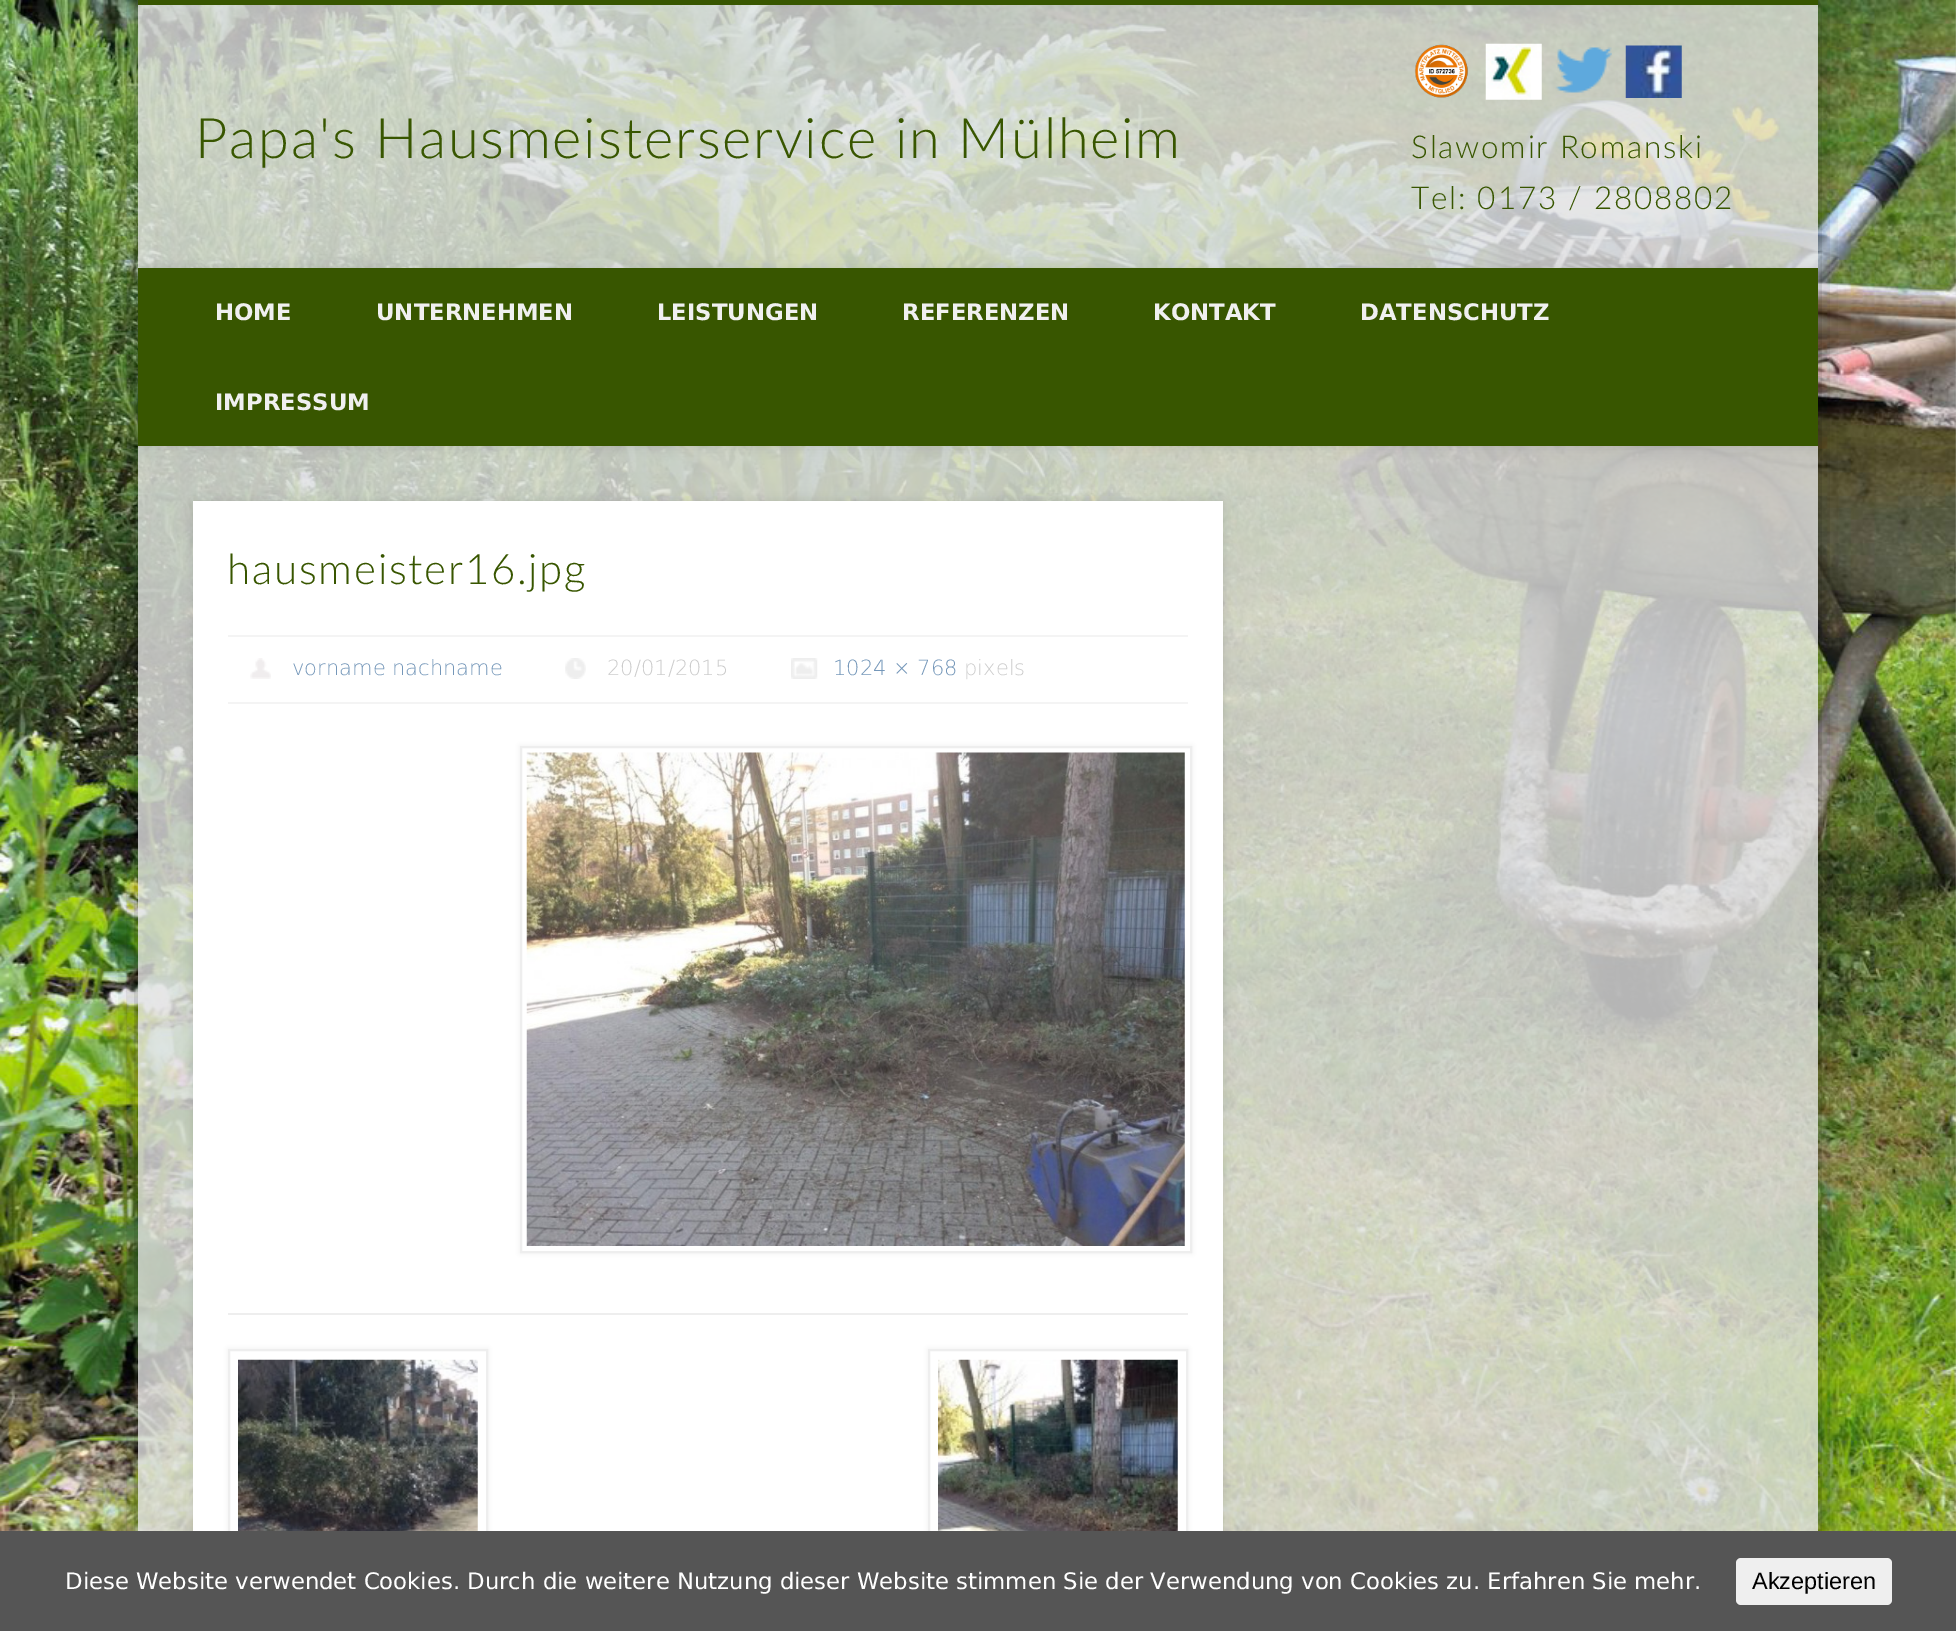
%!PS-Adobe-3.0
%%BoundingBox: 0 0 1956 1631
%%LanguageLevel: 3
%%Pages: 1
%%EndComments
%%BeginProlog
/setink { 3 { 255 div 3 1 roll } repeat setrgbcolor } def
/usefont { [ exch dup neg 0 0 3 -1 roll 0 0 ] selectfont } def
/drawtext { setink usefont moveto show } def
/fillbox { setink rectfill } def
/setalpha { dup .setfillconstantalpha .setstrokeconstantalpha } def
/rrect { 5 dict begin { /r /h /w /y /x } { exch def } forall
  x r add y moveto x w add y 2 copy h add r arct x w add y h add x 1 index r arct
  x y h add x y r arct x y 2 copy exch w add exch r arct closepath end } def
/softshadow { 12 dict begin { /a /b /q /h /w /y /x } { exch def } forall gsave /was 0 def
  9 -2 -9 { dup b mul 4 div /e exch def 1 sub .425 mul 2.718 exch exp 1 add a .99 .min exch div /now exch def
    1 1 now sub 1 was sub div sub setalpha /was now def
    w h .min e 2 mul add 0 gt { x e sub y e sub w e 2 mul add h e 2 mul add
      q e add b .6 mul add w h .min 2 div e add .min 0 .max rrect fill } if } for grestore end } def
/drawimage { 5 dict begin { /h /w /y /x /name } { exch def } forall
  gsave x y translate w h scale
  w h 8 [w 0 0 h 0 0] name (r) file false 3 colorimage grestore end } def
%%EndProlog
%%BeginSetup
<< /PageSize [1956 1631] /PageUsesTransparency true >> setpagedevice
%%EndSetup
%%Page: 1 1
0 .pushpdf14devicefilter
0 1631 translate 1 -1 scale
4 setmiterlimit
0 0 1956 1631 255 255 255 fillbox
(assets/img1.rgb) 0 0 1956 1531 drawimage
gsave
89 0 moveto 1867 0 lineto 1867 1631 lineto 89 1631 lineto closepath 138 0 moveto 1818 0 lineto 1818 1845 lineto 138 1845 lineto closepath eoclip newpath
0 0 0 setink
138 0 1680 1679 0 16 0.4 softshadow
grestore
0.8 setalpha
138 5 1680 1526 225 225 225 fillbox
1 setalpha
138 0 1680 5 56 86 0 fillbox
/Lato-Light 56 usefont
195 158 moveto 1.75 0 (Papa's Hausmeisterservice in Mülheim) ashow
(assets/img2.rgb) 1414 44 54 54 drawimage
(assets/img3.rgb) 1485 43 57 57 drawimage
(assets/img4.rgb) 1555 47 57 46 drawimage
(assets/img5.rgb) 1625 45 57 53 drawimage
/Lato-Light 31.5 usefont
1411 158 moveto 1.75 0 (Slawomir Romanski) ashow
1411 209 moveto 1.75 0 (Tel: 0173 / 2808802) ashow
gsave
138 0 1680 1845 rectclip
0 0 0 setink
138 268 1680 178 0 6 0.1 softshadow
grestore
138 268 1680 178 56 86 0 fillbox
(HOME) 215 320 /DejaVuSans-Bold 22.75 240 240 240 drawtext
(UNTERNEHMEN) 376 320 /DejaVuSans-Bold 22.75 240 240 240 drawtext
(LEISTUNGEN) 657 320 /DejaVuSans-Bold 22.75 240 240 240 drawtext
(REFERENZEN) 902 320 /DejaVuSans-Bold 22.75 240 240 240 drawtext
(KONTAKT) 1153 320 /DejaVuSans-Bold 22.75 240 240 240 drawtext
(DATENSCHUTZ) 1360 320 /DejaVuSans-Bold 22.75 240 240 240 drawtext
(IMPRESSUM) 215 410 /DejaVuSans-Bold 22.75 240 240 240 drawtext
0 0 0 setink
193 501 1030 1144 0 4.5 0.1 softshadow
193 501 1030 1030 255 255 255 fillbox
/Lato-Light 42 usefont
56 86 0 setink
227 584 moveto 1.75 0 (hausmeister16.jpg) ashow
228 635 960 2 244 244 244 fillbox
228 702 960 2 244 244 244 fillbox
(assets/img6.rgb) 250 658 21 21 drawimage
(vorname nachname) 292 675 /DejaVuSans-ExtraLight 21 117 151 185 drawtext
(assets/img7.rgb) 565 658 21 21 drawimage
(20/01/2015) 607 675 /DejaVuSans-ExtraLight 21 204 204 204 drawtext
(assets/img8.rgb) 791 658 27 21 drawimage
(1024 × 768) 833 675 /DejaVuSans-ExtraLight 21 117 151 185 drawtext
(pixels) 964 675 /DejaVuSans-ExtraLight 21 204 204 204 drawtext
238 238 238 setink
520 746 672 507 0 2.5 1 softshadow
255 255 255 setink
521 747 moveto 1191 747 lineto 1191 1252 lineto 521 1252 lineto closepath gsave fill grestore
238 238 238 setink
2 setlinewidth
stroke
(assets/img9.rgb) 526 752 659 494 drawimage
228 1313 960 2 238 238 238 fillbox
228 1349 260 261 0 2.5 1 softshadow
230 1351 256 180 255 255 255 fillbox
238 238 238 setink
229 1350 258 259 rectstroke
(assets/img10.rgb) 238 1359 240 172 drawimage
928 1349 260 261 0 2.5 1 softshadow
930 1351 256 180 255 255 255 fillbox
238 238 238 setink
929 1350 258 259 rectstroke
(assets/img11.rgb) 938 1359 240 172 drawimage
0 1531 1956 100 85 85 85 fillbox
(Diese Website verwendet Cookies. Durch die weitere Nutzung dieser Website stimmen Sie der Verwendung von Cookies zu. Erfahren Sie mehr.) 65 1589 /DejaVuSans-Regular 22.75 255 255 255 drawtext
239 239 239 setink
1736 1558 156 47 5 rrect fill
(Akzeptieren) 1752 1589 /LiberationSans-Regular 23.5 0 0 0 drawtext
.poppdf14devicefilter showpage
%%EOF
